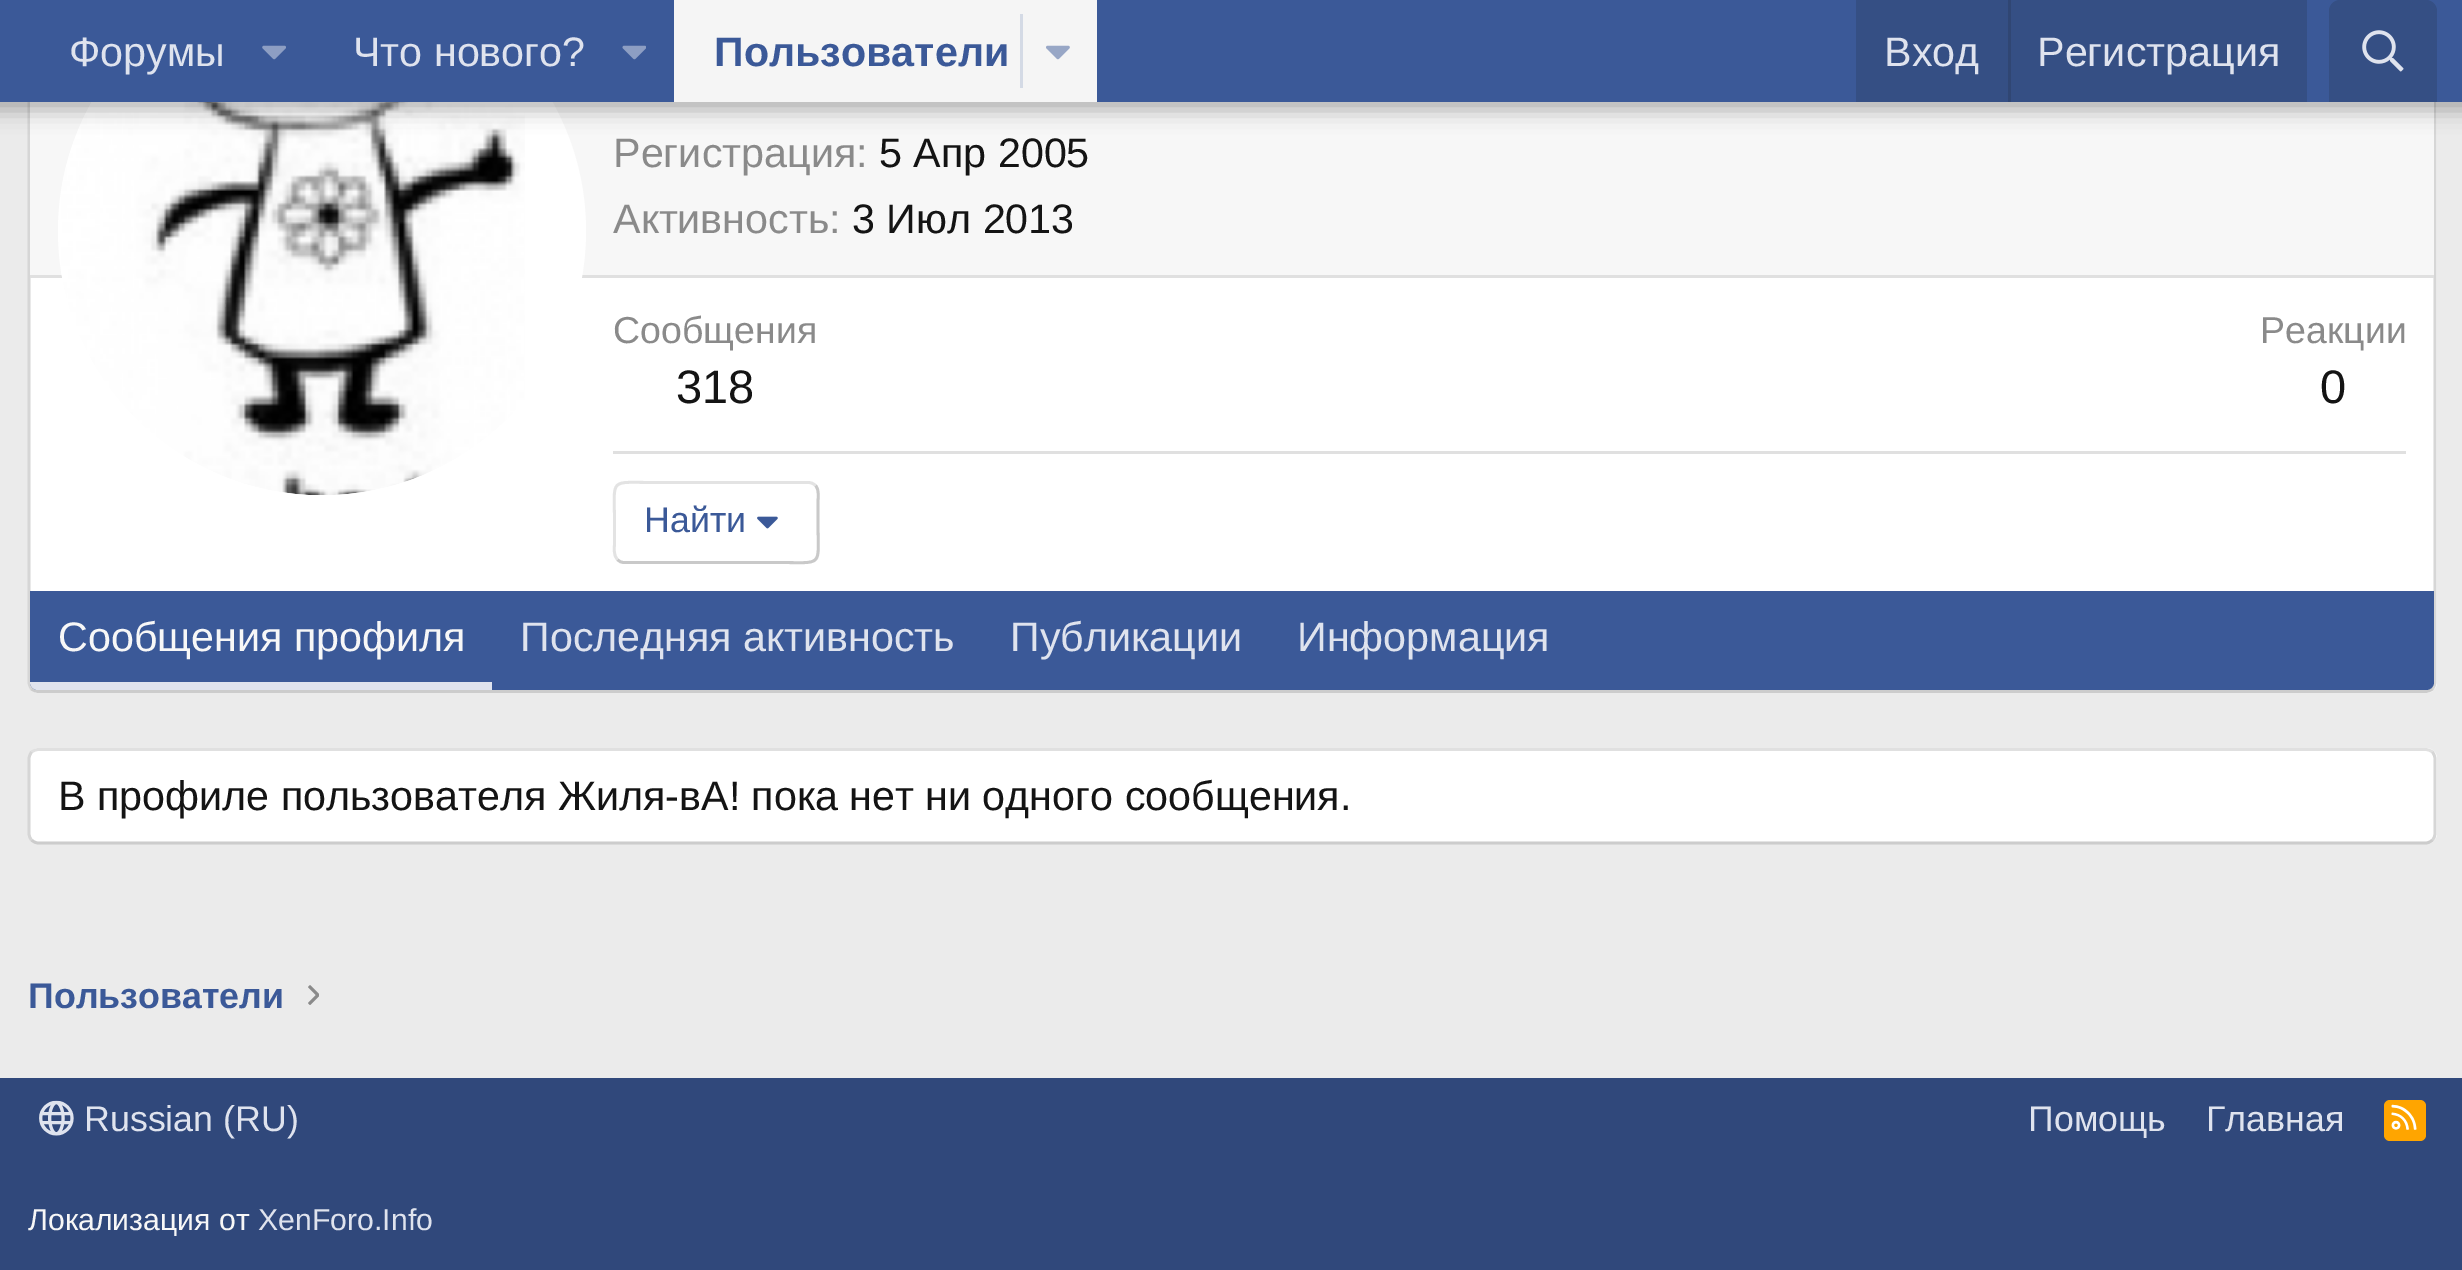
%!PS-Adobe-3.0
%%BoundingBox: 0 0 2462 1270
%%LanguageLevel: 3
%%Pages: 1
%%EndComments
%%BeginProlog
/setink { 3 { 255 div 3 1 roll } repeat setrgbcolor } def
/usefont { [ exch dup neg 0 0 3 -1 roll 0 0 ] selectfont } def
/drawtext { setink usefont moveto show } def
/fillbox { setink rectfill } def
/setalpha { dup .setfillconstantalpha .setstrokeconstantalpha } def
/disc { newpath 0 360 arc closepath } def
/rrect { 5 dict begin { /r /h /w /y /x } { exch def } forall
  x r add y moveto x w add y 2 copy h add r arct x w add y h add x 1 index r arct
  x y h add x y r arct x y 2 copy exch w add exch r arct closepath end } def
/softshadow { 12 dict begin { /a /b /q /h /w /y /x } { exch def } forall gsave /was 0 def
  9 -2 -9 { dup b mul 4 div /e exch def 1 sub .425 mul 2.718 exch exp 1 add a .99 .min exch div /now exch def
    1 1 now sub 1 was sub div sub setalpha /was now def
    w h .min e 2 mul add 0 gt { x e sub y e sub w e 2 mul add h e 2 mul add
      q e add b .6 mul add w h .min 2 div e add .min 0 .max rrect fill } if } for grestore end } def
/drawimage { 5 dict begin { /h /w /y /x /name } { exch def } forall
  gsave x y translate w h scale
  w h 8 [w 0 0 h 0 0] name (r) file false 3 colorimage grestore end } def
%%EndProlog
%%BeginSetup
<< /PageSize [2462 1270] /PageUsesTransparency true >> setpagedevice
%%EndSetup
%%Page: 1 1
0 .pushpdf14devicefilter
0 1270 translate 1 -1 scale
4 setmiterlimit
0 0 2462 1270 235 235 235 fillbox
255 255 255 setink
28 -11 2409 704 11 rrect fill
214 214 214 setink
2.8 setlinewidth
2432.5 -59 moveto 2434 -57.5 2435 -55 2435 -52 curveto 2435 682 lineto 2435 684.5 2434 687 2432.5 689 curveto stroke
204 204 204 setink
2432.5 689 moveto 2430.5 690.5 2428 691.5 2425.5 691.5 curveto 38.5 691.5 lineto 36 691.5 33.5 690.5 31.5 689 curveto stroke
214 214 214 setink
31.5 689 moveto 30 687 29 684.5 29 682 curveto 29 -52 lineto 29 -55 30 -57.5 31.5 -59 curveto stroke
30 102 2404 173 247 247 247 fillbox
30 275 2404 3 224 224 224 fillbox
255 255 255 setink
322 231 264 disc fill
(assets/img5.rgb) 61 102 464 393 drawimage
0 0 0 setink
-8 -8 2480 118 0 11 0.3 softshadow
0 0 2462 102 59 89 152 fillbox
(Форумы) 69 66 /LiberationSans-Regular 41.25 223 227 238 drawtext
(assets/img1.rgb) 262 45 24 15 drawimage
(Что нового?) 353 66 /LiberationSans-Regular 41.25 223 227 238 drawtext
(assets/img2.rgb) 622 45 24 15 drawimage
674 0 423 102 245 245 245 fillbox
(Пользователи) 714 66 /LiberationSans-Bold 41.25 59 89 152 drawtext
1020 14 3 74 212 218 229 fillbox
(assets/img3.rgb) 1046 45 24 15 drawimage
1856 0 451 102 53 79 132 fillbox
(Вход) 1884 66 /LiberationSans-Regular 41.25 223 227 238 drawtext
2008 0 3 102 48 70 115 fillbox
(Регистрация) 2037 66 /LiberationSans-Regular 41.25 223 227 238 drawtext
53 79 132 setink
2340 0 moveto 2426 0 lineto 2432 0 2437 5 2437 11 curveto 2437 102 lineto 2329 102 lineto 2329 11 lineto 2329 5 2334 0 2340 0 curveto closepath fill
(assets/img4.rgb) 2362 30 42 42 drawimage
(Регистрация:) 613 167 /LiberationSans-Regular 41.25 138 138 138 drawtext
(5 Апр 2005) 879 167 /LiberationSans-Regular 41.25 20 20 20 drawtext
(Активность:) 613 233 /LiberationSans-Regular 41.25 138 138 138 drawtext
(3 Июл 2013) 852 233 /LiberationSans-Regular 41.25 20 20 20 drawtext
(Сообщения) 613 343 /LiberationSans-Regular 37.5 138 138 138 drawtext
(318) 676 403 /LiberationSans-Regular 47 20 20 20 drawtext
(Реакции) 2260 343 /LiberationSans-Regular 37.5 138 138 138 drawtext
(0) 2320 403 /LiberationSans-Regular 47 20 20 20 drawtext
613 451 1793 3 224 224 224 fillbox
201 201 201 setink
815.5 485.5 moveto 819.5 490 818 497 818 502.5 curveto 818 522.5 lineto 818 568 824.5 562.5 778 562.5 curveto 624 562.5 lineto 621.5 562.5 619 561.5 617.5 559.5 curveto stroke
227 227 227 setink
617.5 559.5 moveto 613 555 614.5 548 614.5 542.5 curveto 614.5 522.5 lineto 614.5 477 608 482.5 655 482.5 curveto 808.5 482.5 lineto 811 482.5 813.5 483.5 815.5 485.5 curveto stroke
(Найти) 644 532 /LiberationSans-Regular 35.75 59 89 152 drawtext
(assets/img6.rgb) 757 516 21 13 drawimage
30 591 moveto 2434 591 lineto 2434 682 lineto 2434 686.5 2430.5 690 2426 690 curveto 38 690 lineto 33.5 690 30 686.5 30 682 curveto closepath fill
223 227 238 setink
30 682 moveto 492 682 lineto 492 690 lineto 38 690 lineto 33.5 690 30 686.5 30 682 curveto closepath fill
(Сообщения профиля) 58 651 /LiberationSans-Regular 41.25 247 247 247 drawtext
(Последняя активность) 520 651 /LiberationSans-Regular 41.25 223 227 238 drawtext
(Публикации) 1010 651 /LiberationSans-Regular 41.25 223 227 238 drawtext
(Информация) 1297 651 /LiberationSans-Regular 41.25 223 227 238 drawtext
255 255 255 setink
28 748 2409 96 11 rrect fill
224 224 224 setink
31.5 752 moveto 33.5 750.5 36 749.5 38.5 749.5 curveto 2425.5 749.5 lineto 2428 749.5 2430.5 750.5 2432.5 752 curveto stroke
214 214 214 setink
2432.5 752 moveto 2434 754 2435 756.5 2435 759 curveto 2435 833 lineto 2435 836 2434 838.5 2432.5 840 curveto stroke
204 204 204 setink
2432.5 840 moveto 2430.5 842 2428 843 2425.5 843 curveto 38.5 843 lineto 36 843 33.5 842 31.5 840 curveto stroke
214 214 214 setink
31.5 840 moveto 30 838.5 29 836 29 833 curveto 29 759 lineto 29 756.5 30 754 31.5 752 curveto stroke
(В профиле пользователя Жиля-вА! пока нет ни одного сообщения.) 58 810 /LiberationSans-Regular 41.25 20 20 20 drawtext
(Пользователи) 28 1008 /LiberationSans-Bold 35.75 59 89 152 drawtext
(assets/img7.rgb) 308 985 11 20 drawimage
0 1078 2462 192 48 72 123 fillbox
(assets/img8.rgb) 39 1100 35 36 drawimage
(Russian \(RU\)) 84 1131 /LiberationSans-Regular 35.75 223 227 238 drawtext
(Помощь) 2028 1131 /LiberationSans-Regular 35.75 223 227 238 drawtext
(Главная) 2206 1131 /LiberationSans-Regular 35.75 223 227 238 drawtext
255 165 0 setink
2384 1100 42 41 6 rrect fill
(assets/img9.rgb) 2391 1104 26 26 drawimage
(Локализация от) 28 1230 /LiberationSans-Regular 30.25 247 247 247 drawtext
(XenForo.Info) 258 1230 /LiberationSans-Regular 30.25 223 227 238 drawtext
.poppdf14devicefilter showpage
%%EOF
